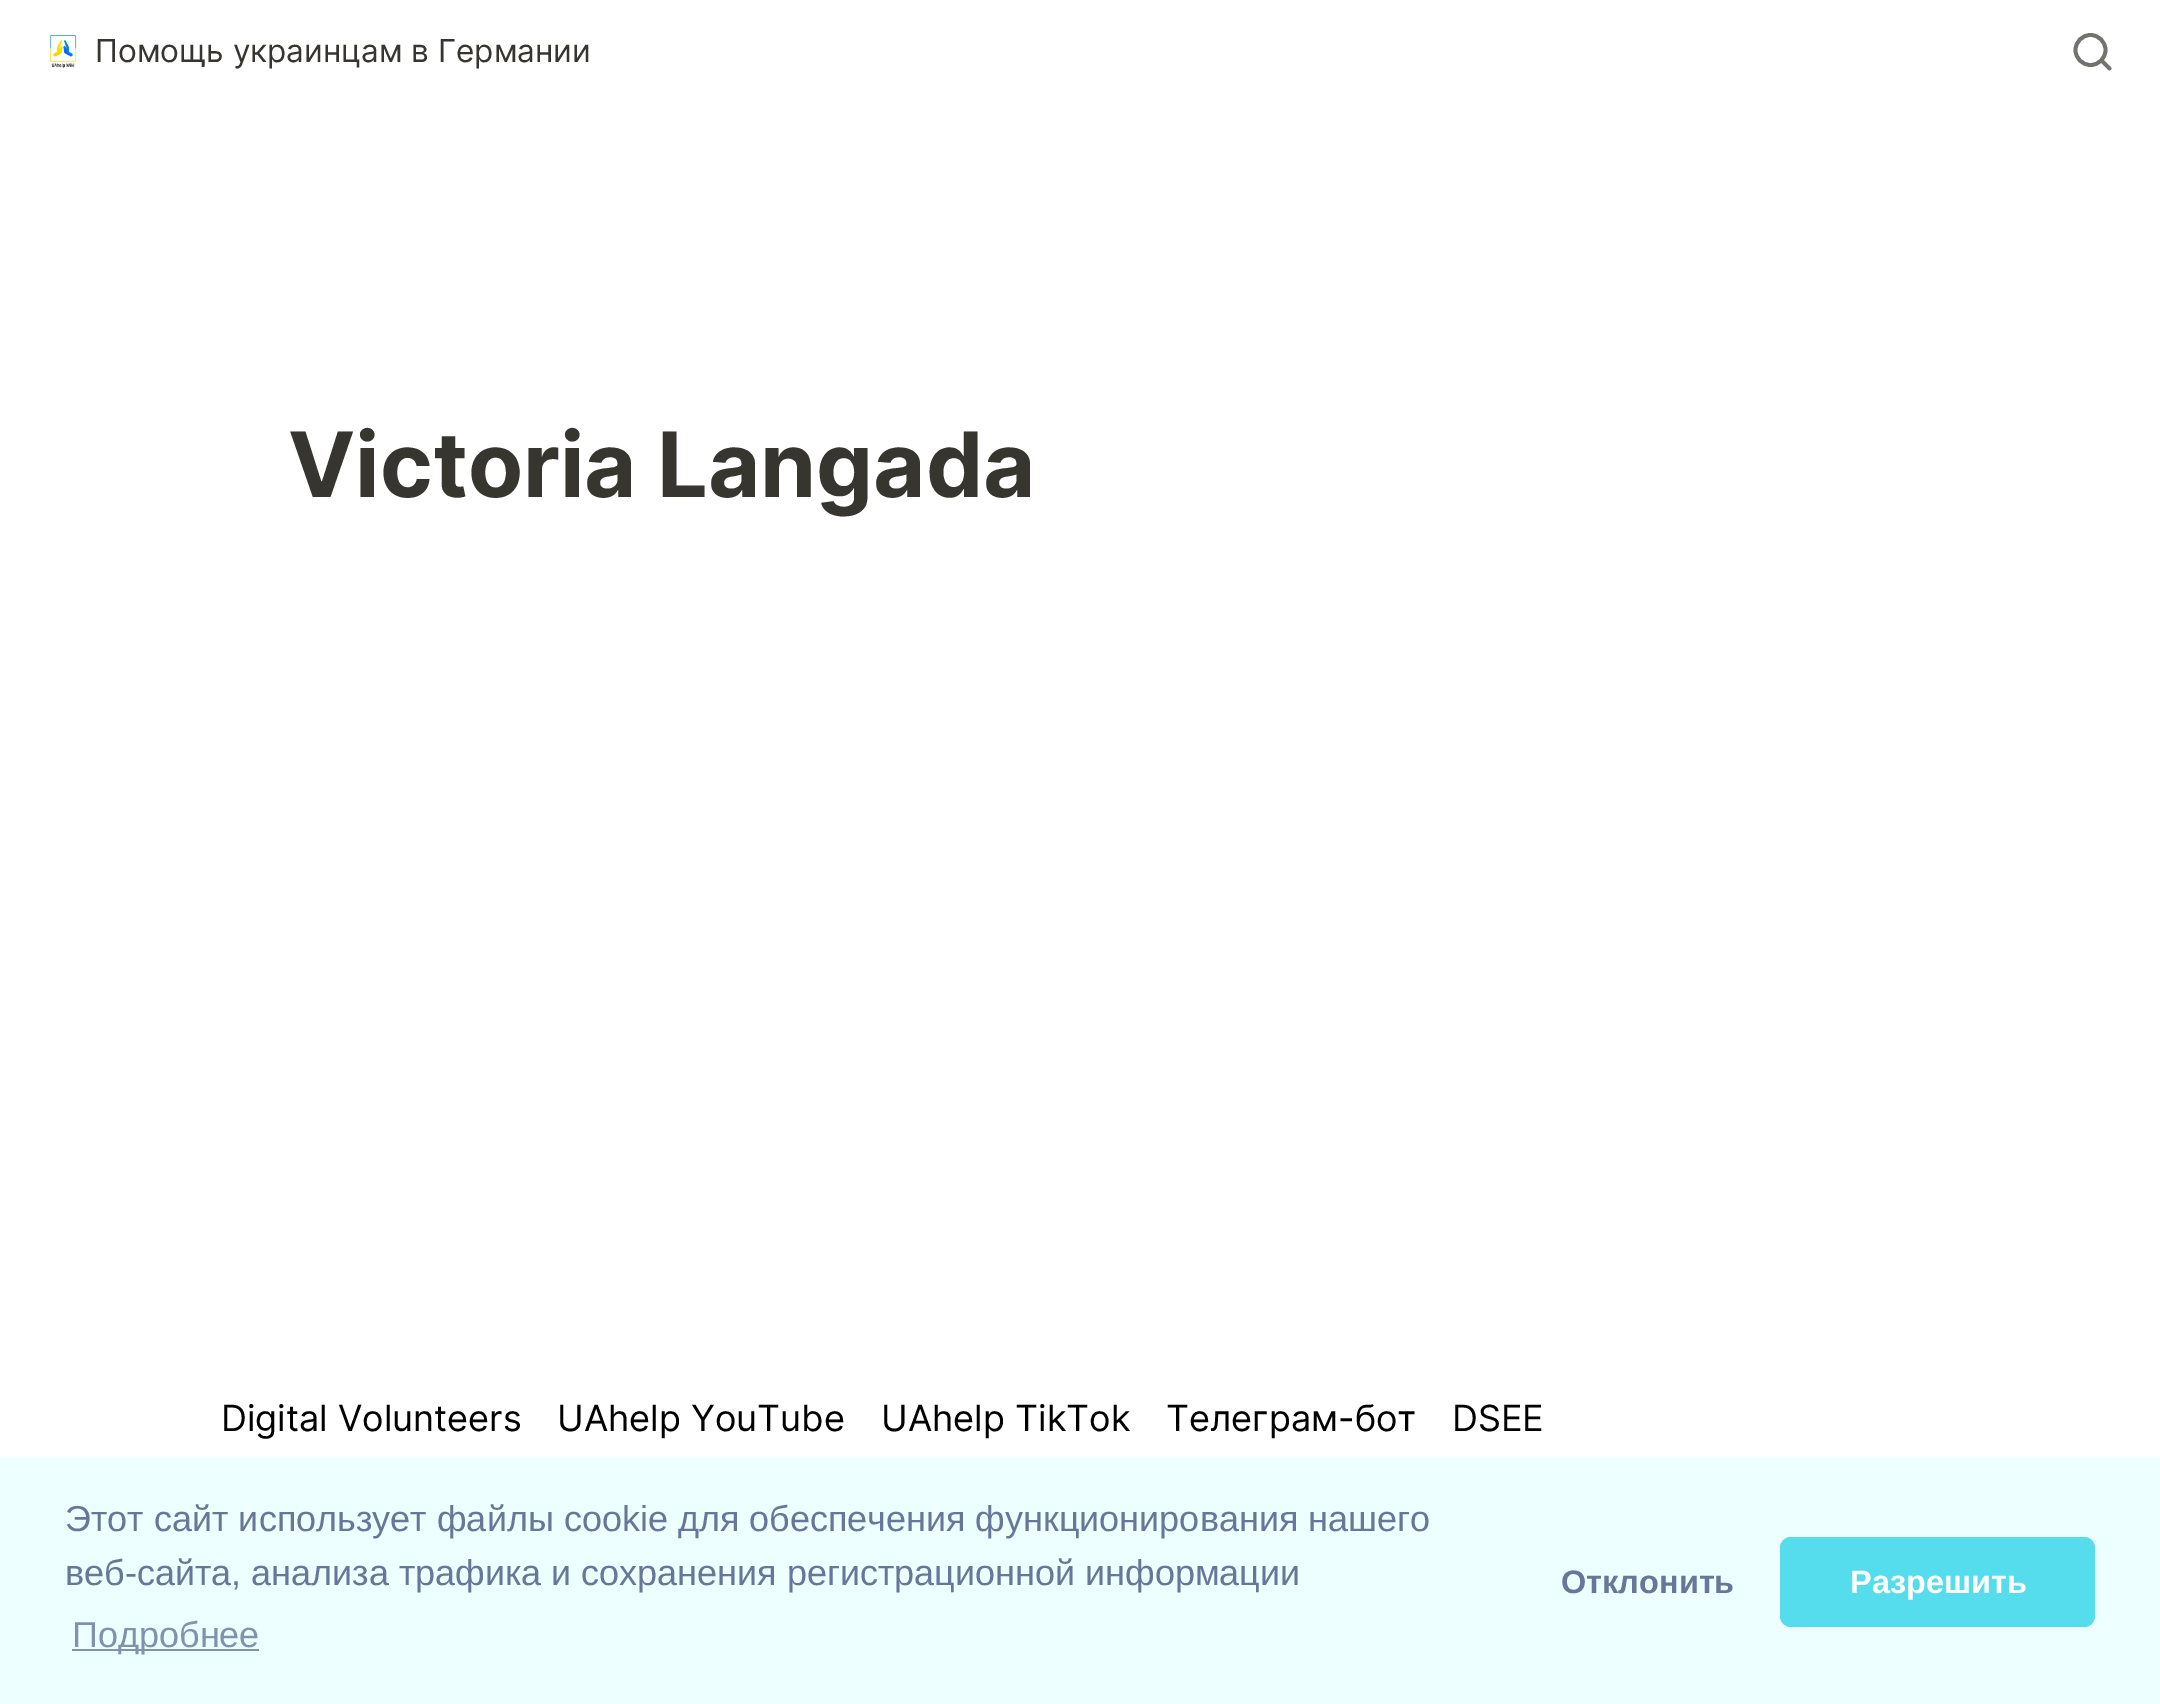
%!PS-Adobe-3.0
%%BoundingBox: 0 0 2160 1704
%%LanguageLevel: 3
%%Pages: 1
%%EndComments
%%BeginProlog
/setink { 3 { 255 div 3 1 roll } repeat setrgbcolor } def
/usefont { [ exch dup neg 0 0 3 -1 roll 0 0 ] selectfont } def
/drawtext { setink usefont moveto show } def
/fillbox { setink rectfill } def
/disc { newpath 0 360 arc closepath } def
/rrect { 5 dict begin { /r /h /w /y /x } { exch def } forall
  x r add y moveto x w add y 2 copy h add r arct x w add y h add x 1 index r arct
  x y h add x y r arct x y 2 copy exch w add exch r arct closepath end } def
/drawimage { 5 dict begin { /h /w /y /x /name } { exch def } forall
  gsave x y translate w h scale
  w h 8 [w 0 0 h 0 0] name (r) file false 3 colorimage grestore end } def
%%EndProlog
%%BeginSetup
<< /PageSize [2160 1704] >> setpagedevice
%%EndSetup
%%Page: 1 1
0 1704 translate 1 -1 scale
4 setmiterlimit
0 0 2160 1704 255 255 255 fillbox
(assets/img1.rgb) 50 35 27 33 drawimage
(Помощь украинцам в Германии) 95 62 /Inter-Regular 31.5 55 53 47 drawtext
115 114 109 setink
3.8 setlinewidth
2090.5 50 15 disc stroke
1 setlinecap
1 setlinejoin
2109.5 68.5 moveto 2101.5 60.5 lineto stroke
(Victoria Langada) 288 497 /Inter-Bold 90 55 53 47 drawtext
(Digital Volunteers) 221 1431 /Inter-Regular 36 0 0 0 drawtext
(UAhelp YouTube) 557 1431 /Inter-Regular 36 0 0 0 drawtext
(UAhelp TikTok) 881 1431 /Inter-Regular 36 0 0 0 drawtext
(Телеграм-бот) 1166 1431 /Inter-Regular 36 0 0 0 drawtext
(DSEE) 1452 1431 /Inter-Regular 36 0 0 0 drawtext
0 1458 2160 246 238 255 255 fillbox
(Этот сайт использует файлы cookie для обеспечения функционирования нашего) 65 1531 /LiberationSans-Regular 36 102 119 153 drawtext
(веб-сайта, анализа трафика и сохранения регистрационной информации) 65 1585 /LiberationSans-Regular 36 102 119 153 drawtext
72 1649 187 2 129 146 173 fillbox
(Подробнее) 72 1647 /LiberationSans-Regular 36 129 146 173 drawtext
(Отклонить) 1561 1593 /LiberationSans-Bold 32.5 102 119 153 drawtext
85 221 238 setink
1780 1537 315 90 11 rrect fill
(Разрешить) 1850 1593 /LiberationSans-Bold 32.5 255 255 255 drawtext
showpage
%%EOF
